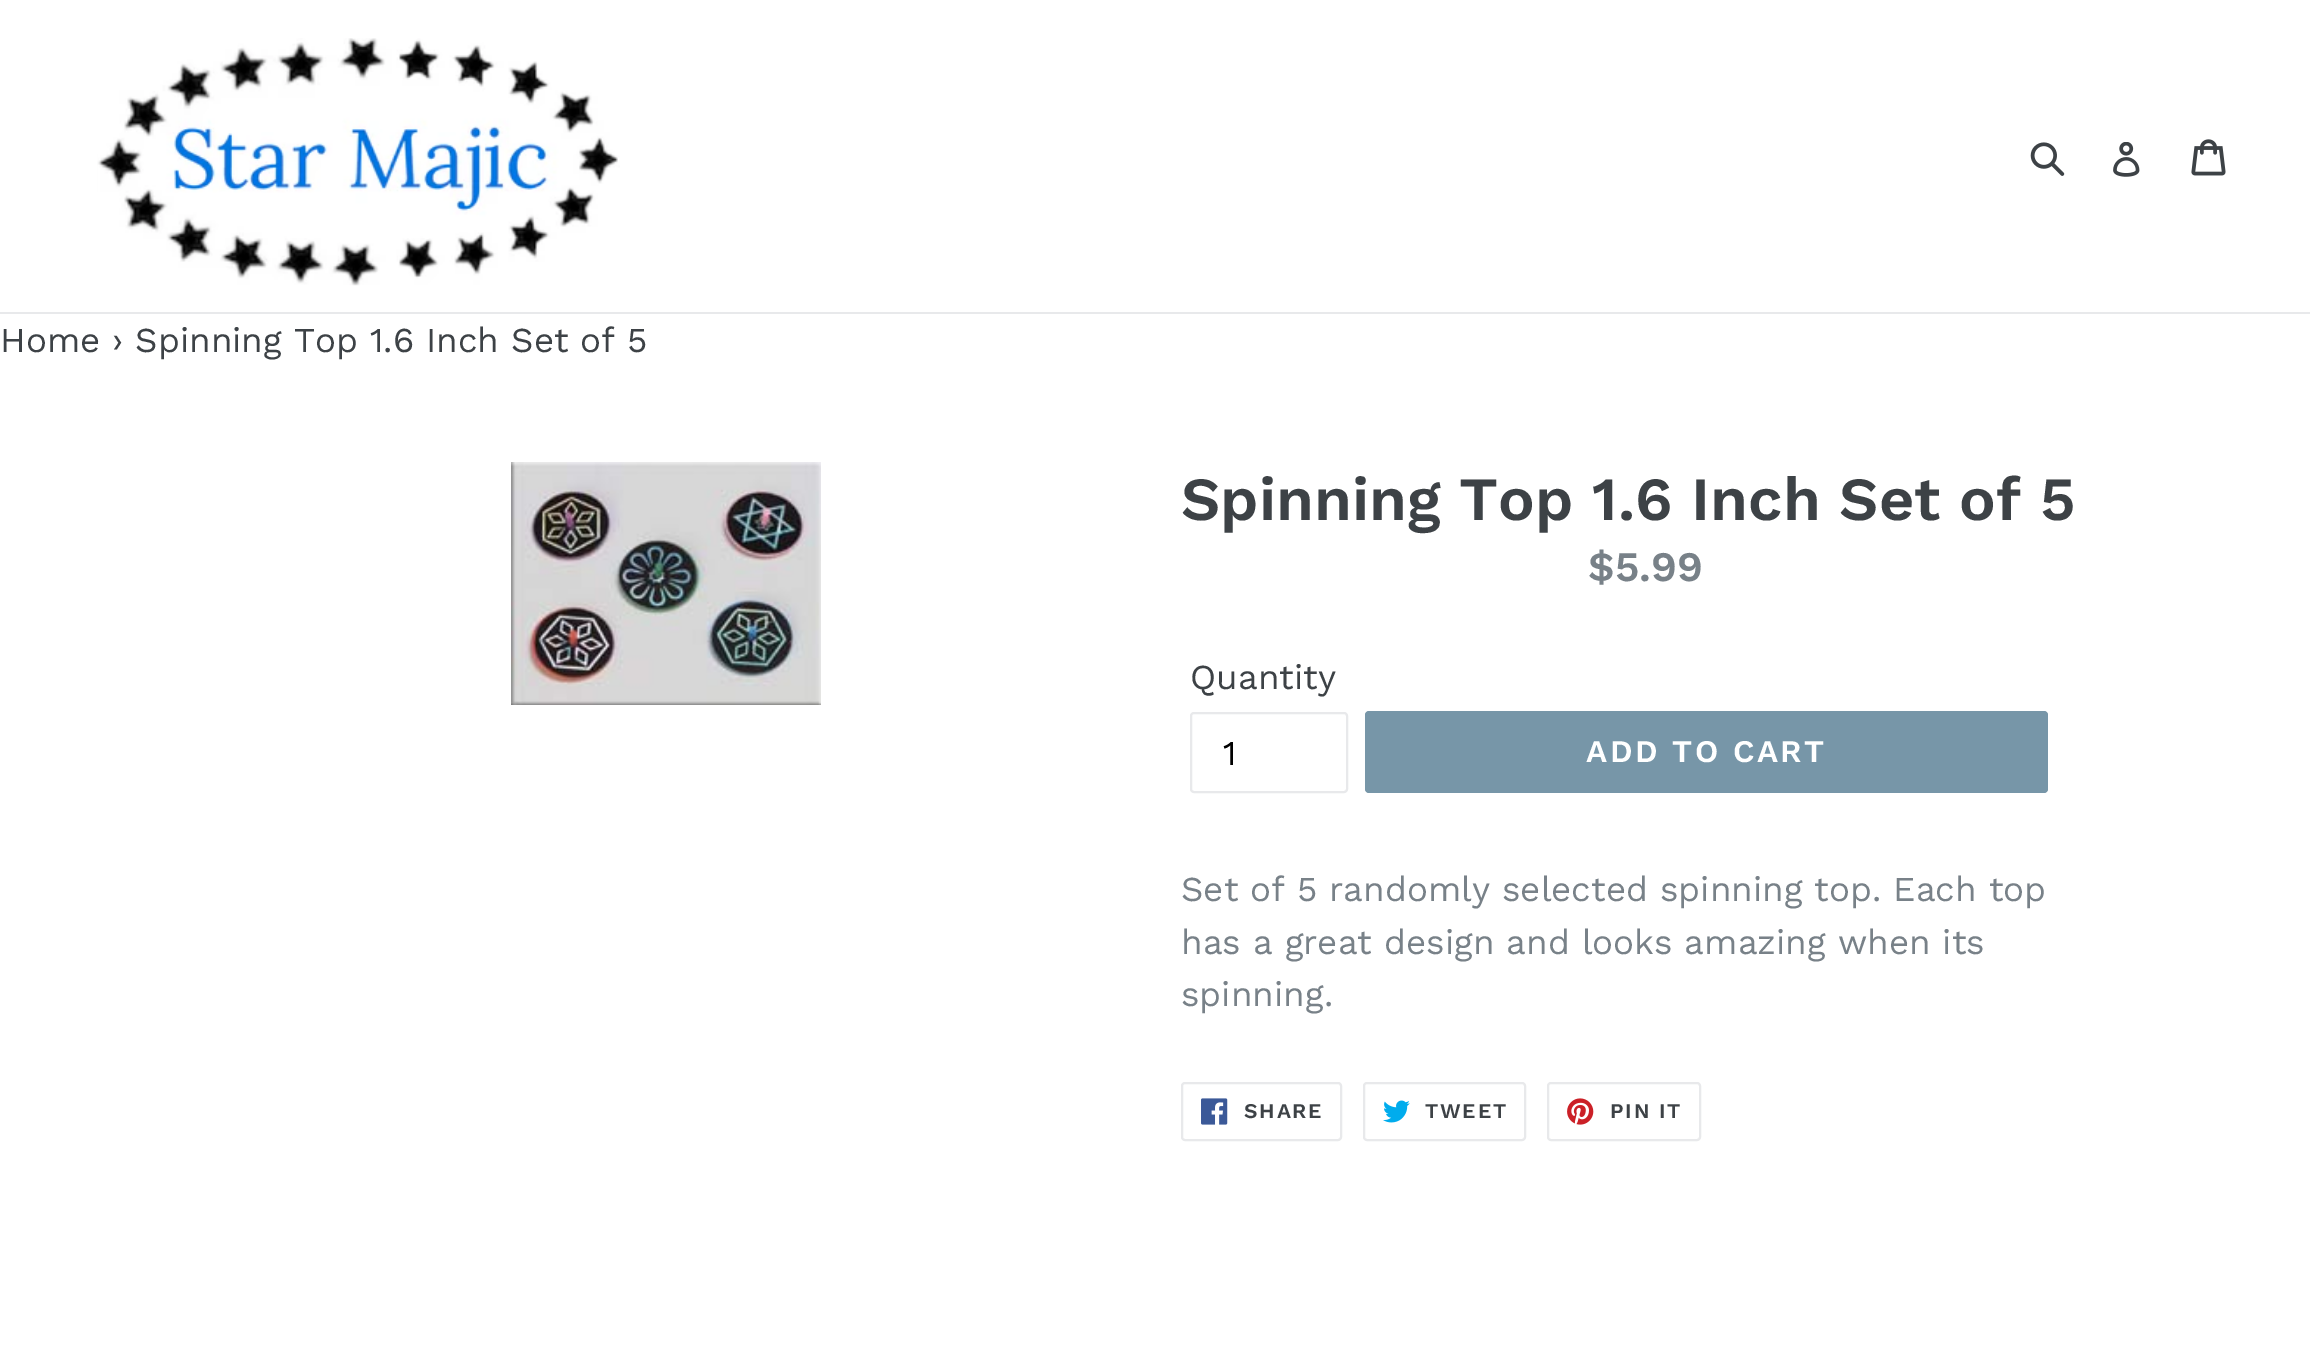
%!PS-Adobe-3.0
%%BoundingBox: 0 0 2310 1355
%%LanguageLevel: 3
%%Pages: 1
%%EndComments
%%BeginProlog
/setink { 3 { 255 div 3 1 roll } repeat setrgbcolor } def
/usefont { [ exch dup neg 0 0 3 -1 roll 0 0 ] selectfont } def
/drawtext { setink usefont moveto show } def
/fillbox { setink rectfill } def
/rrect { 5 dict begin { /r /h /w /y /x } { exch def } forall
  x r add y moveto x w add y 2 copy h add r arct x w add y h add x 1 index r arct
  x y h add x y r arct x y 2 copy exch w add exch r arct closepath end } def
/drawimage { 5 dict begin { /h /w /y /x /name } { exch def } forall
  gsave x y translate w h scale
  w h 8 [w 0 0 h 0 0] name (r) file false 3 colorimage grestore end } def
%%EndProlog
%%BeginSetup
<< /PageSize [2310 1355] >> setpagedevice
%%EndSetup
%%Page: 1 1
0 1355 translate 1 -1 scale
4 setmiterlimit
0 0 2310 1355 255 255 255 fillbox
0 312 2310 2 232 233 235 fillbox
(assets/img1.rgb) 97 38 523 248 drawimage
(assets/img2.rgb) 2030 142 35 34 drawimage
(assets/img3.rgb) 2113 142 27 35 drawimage
(assets/img4.rgb) 2191 139 35 37 drawimage
(Home › Spinning Top 1.6 Inch Set of 5) 0 352 /WorkSans-Regular 35 61 66 70 drawtext
(assets/img5.rgb) 511 462 310 243 drawimage
(Spinning Top 1.6 Inch Set of 5) 1181 520 /WorkSans-SemiBold 61.25 61 66 70 drawtext
($5.99) 1588 581 /WorkSans-SemiBold 42 120 129 136 drawtext
(Quantity) 1190 689 /WorkSans-Regular 35 61 66 70 drawtext
232 233 235 setink
2 setlinewidth
1191 713 156 79 3 rrect stroke
(1) 1223 765 /WorkSans-Regular 35 0 0 0 drawtext
119 150 168 setink
1365 711 683 82 4 rrect fill
/WorkSans-SemiBold 31.5 usefont
255 255 255 setink
1586 762 moveto 2.5 0 (ADD TO CART) ashow
(Set of 5 randomly selected spinning top. Each top) 1181 901 /WorkSans-Regular 35 120 129 136 drawtext
(has a great design and looks amazing when its) 1181 954 /WorkSans-Regular 35 120 129 136 drawtext
(spinning.) 1181 1006 /WorkSans-Regular 35 120 129 136 drawtext
232 233 235 setink
1182 1083 159 57 3 rrect stroke
(assets/img6.rgb) 1201 1098 27 27 drawimage
/WorkSans-SemiBold 21 usefont
61 66 70 setink
1244 1118 moveto 1.75 0 (SHARE) ashow
232 233 235 setink
1364 1083 161 57 3 rrect stroke
(assets/img7.rgb) 1383 1100 27 23 drawimage
61 66 70 setink
1425 1118 moveto 1.75 0 (TWEET) ashow
232 233 235 setink
1548 1083 152 57 3 rrect stroke
(assets/img8.rgb) 1567 1098 27 27 drawimage
61 66 70 setink
1610 1118 moveto 1.75 0 (PIN IT) ashow
showpage
%%EOF
